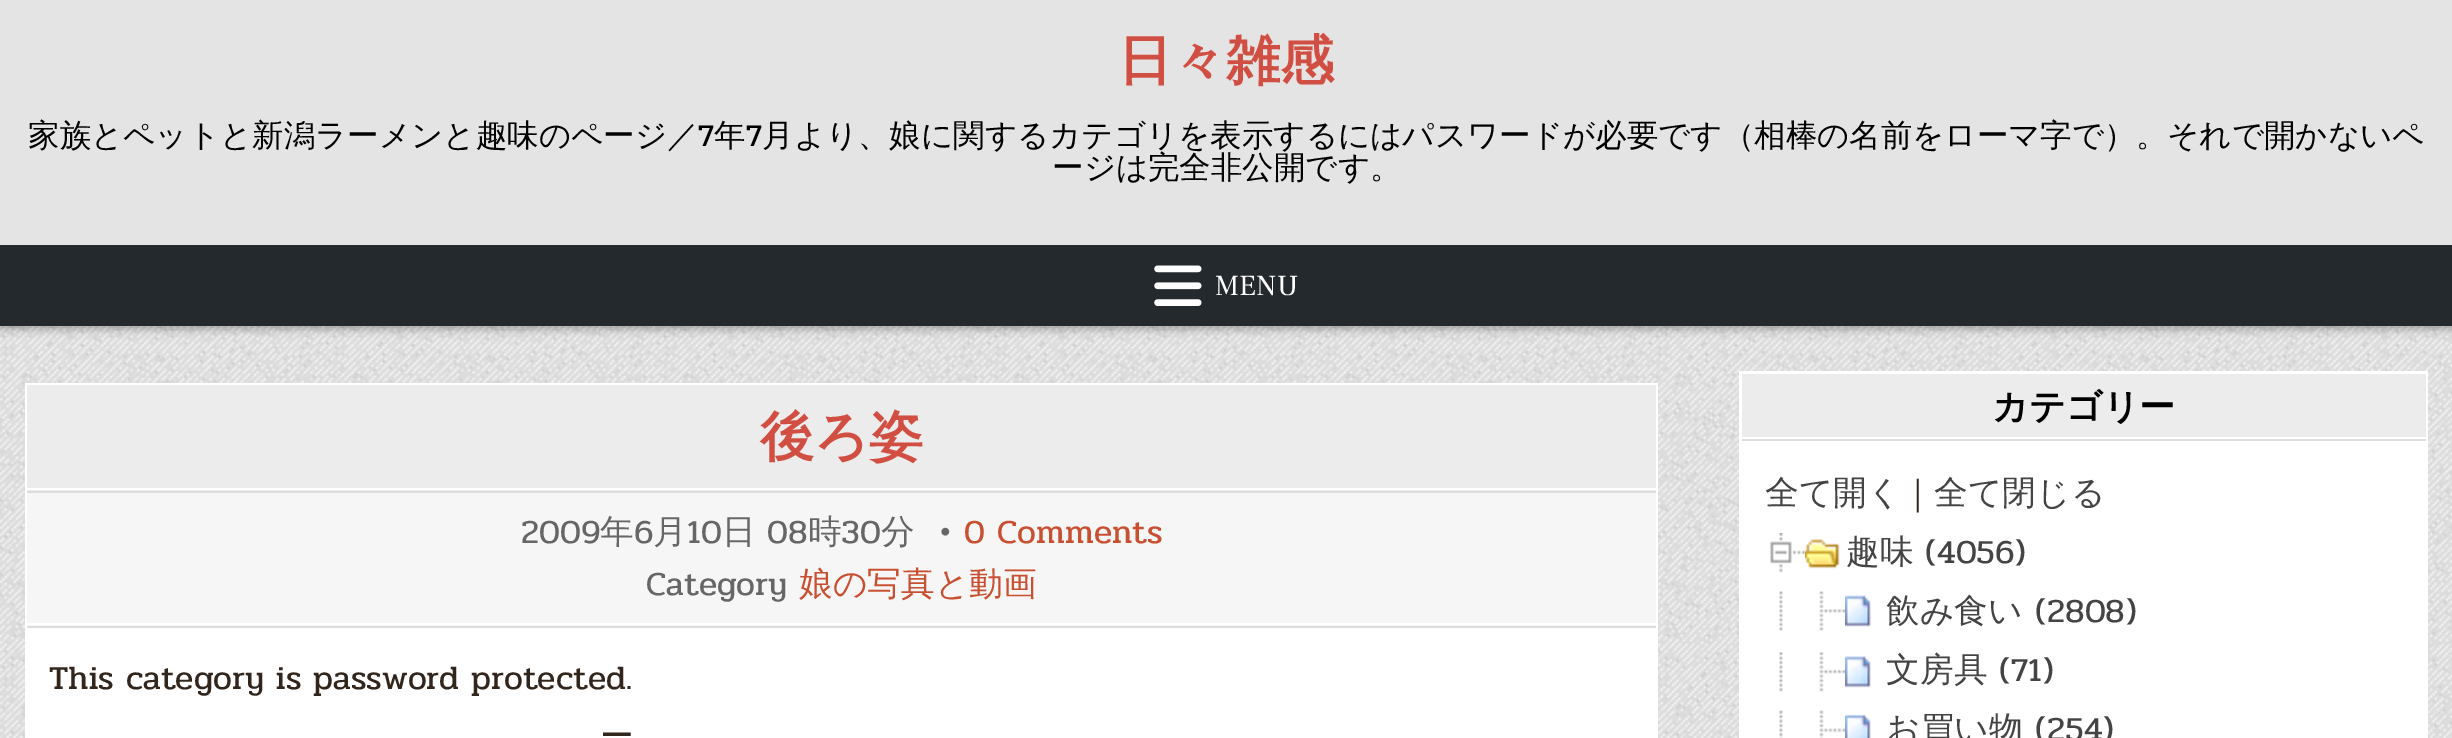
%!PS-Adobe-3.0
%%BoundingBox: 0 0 2452 738
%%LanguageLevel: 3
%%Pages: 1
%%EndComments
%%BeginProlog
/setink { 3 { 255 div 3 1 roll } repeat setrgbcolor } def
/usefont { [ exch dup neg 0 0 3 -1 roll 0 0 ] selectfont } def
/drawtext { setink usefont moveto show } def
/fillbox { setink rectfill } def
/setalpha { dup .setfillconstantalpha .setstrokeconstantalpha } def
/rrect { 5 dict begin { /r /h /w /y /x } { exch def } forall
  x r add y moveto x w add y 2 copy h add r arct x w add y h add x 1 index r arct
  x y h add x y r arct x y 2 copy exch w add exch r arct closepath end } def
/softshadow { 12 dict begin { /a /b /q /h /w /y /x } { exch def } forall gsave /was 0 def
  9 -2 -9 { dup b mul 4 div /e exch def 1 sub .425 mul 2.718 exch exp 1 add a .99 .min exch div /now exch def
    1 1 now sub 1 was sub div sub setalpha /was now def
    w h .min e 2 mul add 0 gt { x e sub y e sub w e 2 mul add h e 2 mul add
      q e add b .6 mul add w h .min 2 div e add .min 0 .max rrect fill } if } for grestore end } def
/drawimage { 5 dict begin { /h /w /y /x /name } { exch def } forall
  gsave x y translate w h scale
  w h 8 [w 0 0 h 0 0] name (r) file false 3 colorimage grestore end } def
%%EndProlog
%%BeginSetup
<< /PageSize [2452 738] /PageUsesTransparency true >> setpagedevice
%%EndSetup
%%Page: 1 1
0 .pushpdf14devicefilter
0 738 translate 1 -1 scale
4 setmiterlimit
0 0 2452 738 255 255 255 fillbox
(assets/img1.rgb) 0 326 2452 412 drawimage
0 0 0 setink
0 248 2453 81 0 4.5 0.3 softshadow
0 0 2452 245 228 228 228 fillbox
(日々雑感) 1118 79 /WenQuanYiZenHei-Bold 54 209 79 66 drawtext
(家族とペットと新潟ラーメンと趣味のページ／) 28 146 /WenQuanYiZenHei-Medium 31.5 0 0 0 drawtext
(7) 698 146 /Pridi-Regular 31.5 0 0 0 drawtext
(年) 714 146 /WenQuanYiZenHei-Medium 31.5 0 0 0 drawtext
(7) 746 146 /Pridi-Regular 31.5 0 0 0 drawtext
(月より、娘に関するカテゴリを表示するにはパスワードが必要です（相棒の名前をローマ字で）。それで開かないペ) 762 146 /WenQuanYiZenHei-Medium 31.5 0 0 0 drawtext
(ージは完全非公開です。) 1052 178 /WenQuanYiZenHei-Medium 31.5 0 0 0 drawtext
0 245 2452 81 36 41 45 fillbox
(assets/img2.rgb) 1154 265 48 41 drawimage
(MENU) 1215 295 /FrankRuhlLibre-Regular 29 255 255 255 drawtext
25 383 1633 355 255 255 255 fillbox
27 385 1629 106 236 236 236 fillbox
27 491 1629 2 221 221 221 fillbox
27 488 1629 2 255 255 255 fillbox
(後ろ姿) 760 455 /WenQuanYiZenHei-Bold 54 209 79 66 drawtext
27 493 1629 133 246 246 246 fillbox
27 626 1629 2 221 221 221 fillbox
27 623 1629 2 255 255 255 fillbox
(2009) 521 543 /Pridi-Regular 33.75 102 102 102 drawtext
(年) 600 543 /WenQuanYiZenHei-Medium 33.75 102 102 102 drawtext
(6) 634 543 /Pridi-Regular 33.75 102 102 102 drawtext
(月) 653 543 /WenQuanYiZenHei-Medium 33.75 102 102 102 drawtext
(10) 687 543 /Pridi-Regular 33.75 102 102 102 drawtext
(日) 722 543 /WenQuanYiZenHei-Medium 33.75 102 102 102 drawtext
(08) 767 543 /Pridi-Regular 33.75 102 102 102 drawtext
(時) 808 543 /WenQuanYiZenHei-Medium 33.75 102 102 102 drawtext
(30) 841 543 /Pridi-Regular 33.75 102 102 102 drawtext
(分) 881 543 /WenQuanYiZenHei-Medium 33.75 102 102 102 drawtext
(•) 940 543 /Pridi-Regular 33.75 102 102 102 drawtext
(0 Comments) 964 543 /Pridi-Regular 33.75 201 79 49 drawtext
(Category) 646 595 /Pridi-Regular 33.75 102 102 102 drawtext
(娘の写真と動画) 799 595 /WenQuanYiZenHei-Medium 33.75 201 79 49 drawtext
(This category is password protected.) 49 689 /Pridi-Regular 33.75 49 37 28 drawtext
(ー) 600 747 /WenQuanYiZenHei-Medium 33.75 49 37 28 drawtext
1739 371 689 367 255 255 255 fillbox
1742 374 684 63 236 236 236 fillbox
1742 439 684 2 221 221 221 fillbox
(カテゴリー) 1992 419 /WenQuanYiZenHei-Bold 36 0 0 0 drawtext
(全て開く) 1765 504 /WenQuanYiZenHei-Medium 33.75 68 68 68 drawtext
(｜) 1901 504 /WenQuanYiZenHei-Medium 33.75 49 37 28 drawtext
(全て閉じる) 1934 504 /WenQuanYiZenHei-Medium 33.75 68 68 68 drawtext
(assets/img3.rgb) 1770 533 35 40 drawimage
(assets/img4.rgb) 1805 539 35 30 drawimage
(趣味) 1846 563 /WenQuanYiZenHei-Medium 33.75 68 68 68 drawtext
(\(4056\)) 1925 563 /Pridi-Regular 33.75 68 68 68 drawtext
(assets/img5.rgb) 1779 591 4 40 drawimage
(assets/img6.rgb) 1819 591 26 40 drawimage
(assets/img7.rgb) 1845 595 26 32 drawimage
(飲み食い) 1886 622 /WenQuanYiZenHei-Medium 33.75 68 68 68 drawtext
(\(2808\)) 2035 622 /Pridi-Regular 33.75 68 68 68 drawtext
(assets/img8.rgb) 1779 652 4 40 drawimage
(assets/img9.rgb) 1819 652 26 40 drawimage
(assets/img10.rgb) 1845 656 26 32 drawimage
(文房具) 1886 681 /WenQuanYiZenHei-Medium 33.75 68 68 68 drawtext
(\(71\)) 1999 681 /Pridi-Regular 33.75 68 68 68 drawtext
(assets/img11.rgb) 1779 710 4 28 drawimage
(assets/img12.rgb) 1819 710 26 28 drawimage
(assets/img13.rgb) 1845 714 26 24 drawimage
(お買い物) 1886 740 /WenQuanYiZenHei-Medium 33.75 68 68 68 drawtext
(\(254\)) 2035 740 /Pridi-Regular 33.75 68 68 68 drawtext
.poppdf14devicefilter showpage
%%EOF
